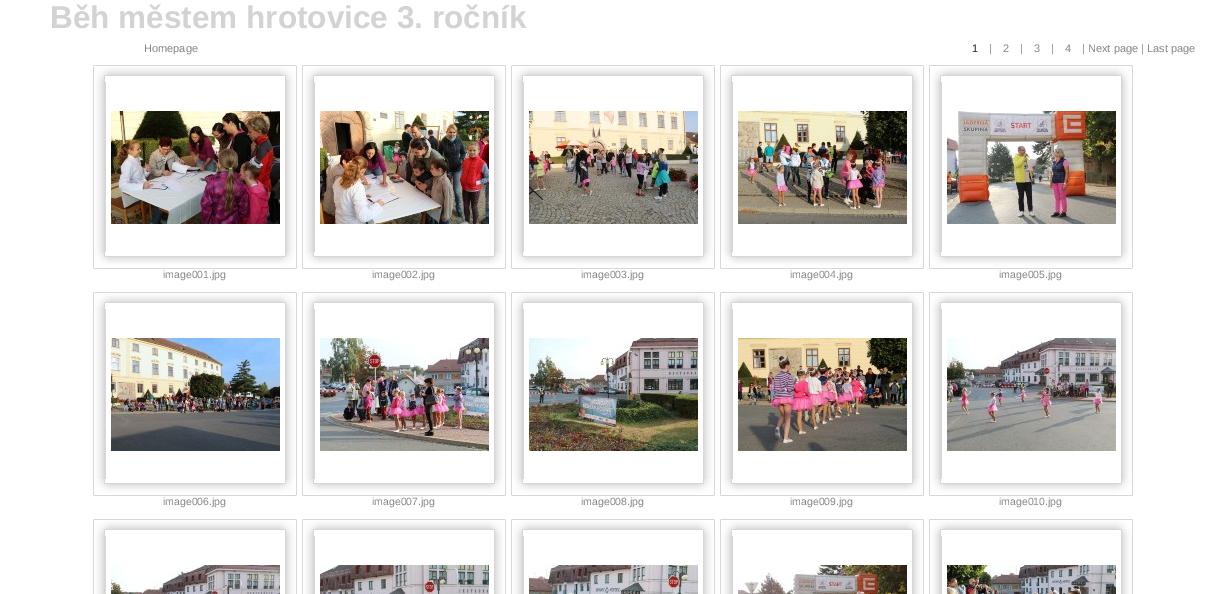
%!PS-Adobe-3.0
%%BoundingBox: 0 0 1225 594
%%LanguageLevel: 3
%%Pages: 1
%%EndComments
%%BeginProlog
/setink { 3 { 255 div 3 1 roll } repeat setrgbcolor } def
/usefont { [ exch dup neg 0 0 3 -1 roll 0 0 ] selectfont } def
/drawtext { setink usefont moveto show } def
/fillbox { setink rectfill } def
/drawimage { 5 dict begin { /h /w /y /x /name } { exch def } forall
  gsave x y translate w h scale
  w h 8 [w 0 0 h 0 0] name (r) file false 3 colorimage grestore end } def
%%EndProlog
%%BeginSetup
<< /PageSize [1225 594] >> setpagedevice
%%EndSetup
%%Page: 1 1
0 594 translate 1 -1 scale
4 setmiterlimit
0 0 1225 594 255 255 255 fillbox
(Běh městem hrotovice 3. ročník) 50 28 /LiberationSans-Bold 31.5 211 211 211 drawtext
(Homepage) 144 52 /LiberationSans-Regular 11 134 134 134 drawtext
(1) 972 52 /LiberationSans-Regular 11 30 30 30 drawtext
(|) 989 52 /LiberationSans-Regular 11 134 134 134 drawtext
(2) 1003 52 /LiberationSans-Regular 11 134 134 134 drawtext
(|) 1020 52 /LiberationSans-Regular 11 134 134 134 drawtext
(3) 1034 52 /LiberationSans-Regular 11 134 134 134 drawtext
(|) 1051 52 /LiberationSans-Regular 11 134 134 134 drawtext
(4) 1065 52 /LiberationSans-Regular 11 134 134 134 drawtext
(| Next page | Last page) 1082 52 /LiberationSans-Regular 11 134 134 134 drawtext
(assets/img1.rgb) 93 65 18 17 drawimage
(assets/img2.rgb) 111 65 169 11 drawimage
(assets/img3.rgb) 280 65 17 17 drawimage
(assets/img4.rgb) 93 82 13 170 drawimage
(assets/img5.rgb) 111 111 169 113 drawimage
(assets/img6.rgb) 285 82 12 170 drawimage
(assets/img7.rgb) 93 252 18 17 drawimage
(assets/img8.rgb) 111 256 169 13 drawimage
(assets/img9.rgb) 280 252 17 17 drawimage
(image001.jpg) 163 278 /LiberationSans-Regular 10.5 134 134 134 drawtext
(assets/img1.rgb) 302 65 18 17 drawimage
(assets/img2.rgb) 320 65 169 11 drawimage
(assets/img3.rgb) 489 65 17 17 drawimage
(assets/img4.rgb) 302 82 13 170 drawimage
(assets/img10.rgb) 320 111 169 113 drawimage
(assets/img6.rgb) 494 82 12 170 drawimage
(assets/img7.rgb) 302 252 18 17 drawimage
(assets/img8.rgb) 320 256 169 13 drawimage
(assets/img9.rgb) 489 252 17 17 drawimage
(image002.jpg) 372 278 /LiberationSans-Regular 10.5 134 134 134 drawtext
(assets/img1.rgb) 511 65 18 17 drawimage
(assets/img2.rgb) 529 65 169 11 drawimage
(assets/img3.rgb) 698 65 17 17 drawimage
(assets/img4.rgb) 511 82 13 170 drawimage
(assets/img11.rgb) 529 111 169 113 drawimage
(assets/img6.rgb) 703 82 12 170 drawimage
(assets/img7.rgb) 511 252 18 17 drawimage
(assets/img8.rgb) 529 256 169 13 drawimage
(assets/img9.rgb) 698 252 17 17 drawimage
(image003.jpg) 581 278 /LiberationSans-Regular 10.5 134 134 134 drawtext
(assets/img1.rgb) 720 65 18 17 drawimage
(assets/img2.rgb) 738 65 169 11 drawimage
(assets/img3.rgb) 907 65 17 17 drawimage
(assets/img4.rgb) 720 82 13 170 drawimage
(assets/img12.rgb) 738 111 169 113 drawimage
(assets/img6.rgb) 912 82 12 170 drawimage
(assets/img7.rgb) 720 252 18 17 drawimage
(assets/img8.rgb) 738 256 169 13 drawimage
(assets/img9.rgb) 907 252 17 17 drawimage
(image004.jpg) 790 278 /LiberationSans-Regular 10.5 134 134 134 drawtext
(assets/img1.rgb) 929 65 18 17 drawimage
(assets/img2.rgb) 947 65 169 11 drawimage
(assets/img3.rgb) 1116 65 17 17 drawimage
(assets/img4.rgb) 929 82 13 170 drawimage
(assets/img13.rgb) 947 111 169 113 drawimage
(assets/img6.rgb) 1121 82 12 170 drawimage
(assets/img7.rgb) 929 252 18 17 drawimage
(assets/img8.rgb) 947 256 169 13 drawimage
(assets/img9.rgb) 1116 252 17 17 drawimage
(image005.jpg) 999 278 /LiberationSans-Regular 10.5 134 134 134 drawtext
(assets/img1.rgb) 93 292 18 17 drawimage
(assets/img2.rgb) 111 292 169 11 drawimage
(assets/img3.rgb) 280 292 17 17 drawimage
(assets/img4.rgb) 93 309 13 170 drawimage
(assets/img14.rgb) 111 338 169 113 drawimage
(assets/img6.rgb) 285 309 12 170 drawimage
(assets/img7.rgb) 93 479 18 17 drawimage
(assets/img8.rgb) 111 483 169 13 drawimage
(assets/img9.rgb) 280 479 17 17 drawimage
(image006.jpg) 163 505 /LiberationSans-Regular 10.5 134 134 134 drawtext
(assets/img1.rgb) 302 292 18 17 drawimage
(assets/img2.rgb) 320 292 169 11 drawimage
(assets/img3.rgb) 489 292 17 17 drawimage
(assets/img4.rgb) 302 309 13 170 drawimage
(assets/img15.rgb) 320 338 169 113 drawimage
(assets/img6.rgb) 494 309 12 170 drawimage
(assets/img7.rgb) 302 479 18 17 drawimage
(assets/img8.rgb) 320 483 169 13 drawimage
(assets/img9.rgb) 489 479 17 17 drawimage
(image007.jpg) 372 505 /LiberationSans-Regular 10.5 134 134 134 drawtext
(assets/img1.rgb) 511 292 18 17 drawimage
(assets/img2.rgb) 529 292 169 11 drawimage
(assets/img3.rgb) 698 292 17 17 drawimage
(assets/img4.rgb) 511 309 13 170 drawimage
(assets/img16.rgb) 529 338 169 113 drawimage
(assets/img6.rgb) 703 309 12 170 drawimage
(assets/img7.rgb) 511 479 18 17 drawimage
(assets/img8.rgb) 529 483 169 13 drawimage
(assets/img9.rgb) 698 479 17 17 drawimage
(image008.jpg) 581 505 /LiberationSans-Regular 10.5 134 134 134 drawtext
(assets/img1.rgb) 720 292 18 17 drawimage
(assets/img2.rgb) 738 292 169 11 drawimage
(assets/img3.rgb) 907 292 17 17 drawimage
(assets/img4.rgb) 720 309 13 170 drawimage
(assets/img17.rgb) 738 338 169 113 drawimage
(assets/img6.rgb) 912 309 12 170 drawimage
(assets/img7.rgb) 720 479 18 17 drawimage
(assets/img8.rgb) 738 483 169 13 drawimage
(assets/img9.rgb) 907 479 17 17 drawimage
(image009.jpg) 790 505 /LiberationSans-Regular 10.5 134 134 134 drawtext
(assets/img1.rgb) 929 292 18 17 drawimage
(assets/img2.rgb) 947 292 169 11 drawimage
(assets/img3.rgb) 1116 292 17 17 drawimage
(assets/img4.rgb) 929 309 13 170 drawimage
(assets/img18.rgb) 947 338 169 113 drawimage
(assets/img6.rgb) 1121 309 12 170 drawimage
(assets/img7.rgb) 929 479 18 17 drawimage
(assets/img8.rgb) 947 483 169 13 drawimage
(assets/img9.rgb) 1116 479 17 17 drawimage
(image010.jpg) 999 505 /LiberationSans-Regular 10.5 134 134 134 drawtext
(assets/img1.rgb) 93 519 18 17 drawimage
(assets/img2.rgb) 111 519 169 11 drawimage
(assets/img3.rgb) 280 519 17 17 drawimage
(assets/img19.rgb) 93 536 13 58 drawimage
(assets/img20.rgb) 111 565 169 29 drawimage
(assets/img21.rgb) 285 536 12 58 drawimage
(assets/img1.rgb) 302 519 18 17 drawimage
(assets/img2.rgb) 320 519 169 11 drawimage
(assets/img3.rgb) 489 519 17 17 drawimage
(assets/img19.rgb) 302 536 13 58 drawimage
(assets/img22.rgb) 320 565 169 29 drawimage
(assets/img21.rgb) 494 536 12 58 drawimage
(assets/img1.rgb) 511 519 18 17 drawimage
(assets/img2.rgb) 529 519 169 11 drawimage
(assets/img3.rgb) 698 519 17 17 drawimage
(assets/img19.rgb) 511 536 13 58 drawimage
(assets/img23.rgb) 529 565 169 29 drawimage
(assets/img21.rgb) 703 536 12 58 drawimage
(assets/img1.rgb) 720 519 18 17 drawimage
(assets/img2.rgb) 738 519 169 11 drawimage
(assets/img3.rgb) 907 519 17 17 drawimage
(assets/img19.rgb) 720 536 13 58 drawimage
(assets/img24.rgb) 738 565 169 29 drawimage
(assets/img21.rgb) 912 536 12 58 drawimage
(assets/img1.rgb) 929 519 18 17 drawimage
(assets/img2.rgb) 947 519 169 11 drawimage
(assets/img3.rgb) 1116 519 17 17 drawimage
(assets/img19.rgb) 929 536 13 58 drawimage
(assets/img25.rgb) 947 565 169 29 drawimage
(assets/img21.rgb) 1121 536 12 58 drawimage
showpage
%%EOF
